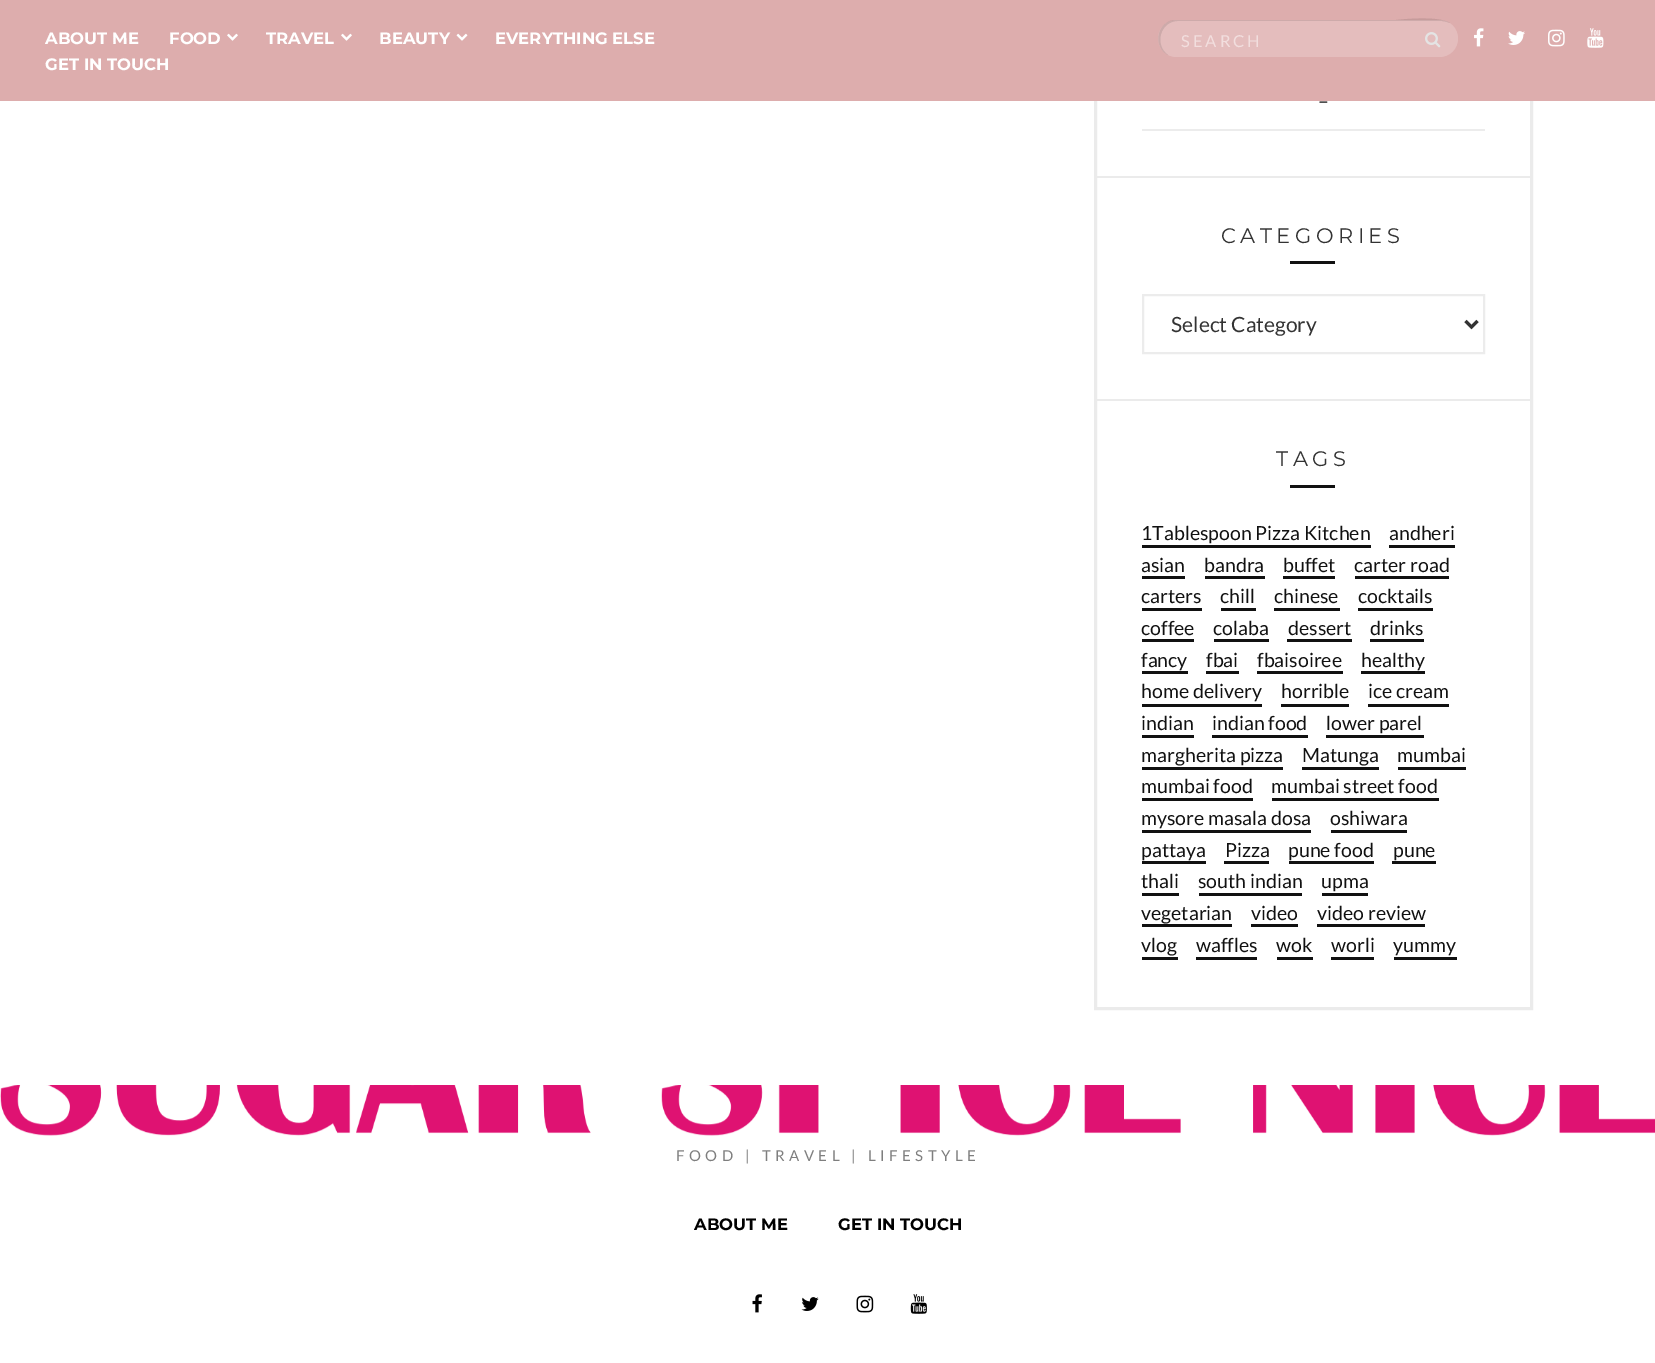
%!PS-Adobe-3.0
%%BoundingBox: 0 0 1655 1363
%%LanguageLevel: 3
%%Pages: 1
%%EndComments
%%BeginProlog
/setink { 3 { 255 div 3 1 roll } repeat setrgbcolor } def
/usefont { [ exch dup neg 0 0 3 -1 roll 0 0 ] selectfont } def
/drawtext { setink usefont moveto show } def
/fillbox { setink rectfill } def
/setalpha { dup .setfillconstantalpha .setstrokeconstantalpha } def
/rrect { 5 dict begin { /r /h /w /y /x } { exch def } forall
  x r add y moveto x w add y 2 copy h add r arct x w add y h add x 1 index r arct
  x y h add x y r arct x y 2 copy exch w add exch r arct closepath end } def
/drawimage { 5 dict begin { /h /w /y /x /name } { exch def } forall
  gsave x y translate w h scale
  w h 8 [w 0 0 h 0 0] name (r) file false 3 colorimage grestore end } def
%%EndProlog
%%BeginSetup
<< /PageSize [1655 1363] /PageUsesTransparency true >> setpagedevice
%%EndSetup
%%Page: 1 1
0 .pushpdf14devicefilter
0 1363 translate 1 -1 scale
4 setmiterlimit
0 0 1655 1363 255 255 255 fillbox
235 235 235 setink
3 setlinewidth
1095.5 -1.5 436 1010 rectstroke
0 0 1655 101 221 173 173 fillbox
(ABOUT ME) 45 44 /Montserrat-Bold 16.5 255 255 255 drawtext
(FOOD) 169 44 /Montserrat-Bold 16.5 255 255 255 drawtext
(assets/img1.rgb) 227 33 11 8 drawimage
(TRAVEL) 266 44 /Montserrat-Bold 16.5 255 255 255 drawtext
(assets/img1.rgb) 341 33 11 8 drawimage
(BEAUTY) 379 44 /Montserrat-Bold 16.5 255 255 255 drawtext
(assets/img2.rgb) 456 33 12 8 drawimage
(EVERYTHING ELSE) 495 44 /Montserrat-Bold 16.5 255 255 255 drawtext
(GET IN TOUCH) 45 70 /Montserrat-Bold 16.5 255 255 255 drawtext
228 189 189 setink
1158 20 300 37 18.5 rrect fill
0.1 setalpha
0 0 0 setink
1178 21 moveto 1441 21 lineto 1444 21 1447 22 1450 23 curveto 1438 15 1396 20 1396 20 curveto 1173 20 lineto 1156 24 1153 47 1168 55 curveto 1154 45 1160 21 1178 21 curveto closepath fill
/Lato-Regular 16.5 usefont
1 setalpha
242 222 222 setink
1181 47 moveto 3 0 (SEARCH) ashow
(assets/img3.rgb) 1425 32 16 16 drawimage
(assets/img4.rgb) 1474 28 10 19 drawimage
(assets/img5.rgb) 1508 31 17 14 drawimage
(assets/img6.rgb) 1548 29 17 18 drawimage
(assets/img7.rgb) 1587 28 17 20 drawimage
1097 176 433 2 235 235 235 fillbox
1142 129 343 2 236 236 236 fillbox
(–) 1318 108 /Lato-Regular 19.5 17 17 17 drawtext
1097 399 433 2 235 235 235 fillbox
/Montserrat-Regular 21 usefont
51 51 51 setink
1221 243 moveto 4.5 0 (CATEGORIES) ashow
1290 261 45 3 17 17 17 fillbox
236 236 236 setink
2 setlinewidth
1143 295 341 58 rectstroke
51 51 51 setink
3 setlinewidth
1465.5 321 moveto 1471.5 327 lineto 1477.5 321 lineto stroke
(Select Category) 1171 332 /Lato-Regular 21 51 51 51 drawtext
/Montserrat-Regular 21 usefont
1276 466 moveto 4.5 0 (TAGS) ashow
1290 485 45 3 17 17 17 fillbox
(1Tablespoon Pizza Kitchen) 1141 540 /Lato-Regular 19.5 17 17 17 drawtext
1142 545 229 3 17 17 17 fillbox
(andheri) 1389 540 /Lato-Regular 19.5 17 17 17 drawtext
1389 545 66 3 17 17 17 fillbox
(asian) 1141 572 /Lato-Regular 19.5 17 17 17 drawtext
1142 576 43 3 17 17 17 fillbox
(bandra) 1204 572 /Lato-Regular 19.5 17 17 17 drawtext
1205 576 60 3 17 17 17 fillbox
(buffet) 1283 572 /Lato-Regular 19.5 17 17 17 drawtext
1283 576 52 3 17 17 17 fillbox
(carter road) 1354 572 /Lato-Regular 19.5 17 17 17 drawtext
1355 576 94 3 17 17 17 fillbox
(carters) 1141 603 /Lato-Regular 19.5 17 17 17 drawtext
1142 608 60 3 17 17 17 fillbox
(chill) 1220 603 /Lato-Regular 19.5 17 17 17 drawtext
1221 608 35 3 17 17 17 fillbox
(chinese) 1274 603 /Lato-Regular 19.5 17 17 17 drawtext
1274 608 66 3 17 17 17 fillbox
(cocktails) 1358 603 /Lato-Regular 19.5 17 17 17 drawtext
1358 608 75 3 17 17 17 fillbox
(coffee) 1141 635 /Lato-Regular 19.5 17 17 17 drawtext
1142 639 52 3 17 17 17 fillbox
(colaba) 1213 635 /Lato-Regular 19.5 17 17 17 drawtext
1214 639 55 3 17 17 17 fillbox
(dessert) 1288 635 /Lato-Regular 19.5 17 17 17 drawtext
1287 639 65 3 17 17 17 fillbox
(drinks) 1370 635 /Lato-Regular 19.5 17 17 17 drawtext
1370 639 54 3 17 17 17 fillbox
(fancy) 1141 667 /Lato-Regular 19.5 17 17 17 drawtext
1142 671 46 3 17 17 17 fillbox
(fbai) 1206 667 /Lato-Regular 19.5 17 17 17 drawtext
1206 671 33 3 17 17 17 fillbox
(fbaisoiree) 1257 667 /Lato-Regular 19.5 17 17 17 drawtext
1257 671 86 3 17 17 17 fillbox
(healthy) 1361 667 /Lato-Regular 19.5 17 17 17 drawtext
1361 671 64 3 17 17 17 fillbox
(home delivery) 1141 698 /Lato-Regular 19.5 17 17 17 drawtext
1142 704 120 3 17 17 17 fillbox
(horrible) 1281 698 /Lato-Regular 19.5 17 17 17 drawtext
1281 704 68 3 17 17 17 fillbox
(ice cream) 1368 698 /Lato-Regular 19.5 17 17 17 drawtext
1368 704 81 3 17 17 17 fillbox
(indian) 1141 730 /Lato-Regular 19.5 17 17 17 drawtext
1142 735 52 3 17 17 17 fillbox
(indian food) 1212 730 /Lato-Regular 19.5 17 17 17 drawtext
1212 735 96 3 17 17 17 fillbox
(lower parel) 1326 730 /Lato-Regular 19.5 17 17 17 drawtext
1326 735 98 3 17 17 17 fillbox
(margherita pizza) 1141 762 /Lato-Regular 19.5 17 17 17 drawtext
1142 767 141 3 17 17 17 fillbox
(Matunga) 1302 762 /Lato-Regular 19.5 17 17 17 drawtext
1302 767 77 3 17 17 17 fillbox
(mumbai) 1397 762 /Lato-Regular 19.5 17 17 17 drawtext
1398 767 68 3 17 17 17 fillbox
(mumbai food) 1141 793 /Lato-Regular 19.5 17 17 17 drawtext
1142 798 111 3 17 17 17 fillbox
(mumbai street food) 1271 793 /Lato-Regular 19.5 17 17 17 drawtext
1272 798 167 3 17 17 17 fillbox
(mysore masala dosa) 1141 825 /Lato-Regular 19.5 17 17 17 drawtext
1142 830 169 3 17 17 17 fillbox
(oshiwara) 1330 825 /Lato-Regular 19.5 17 17 17 drawtext
1331 830 76 3 17 17 17 fillbox
(pattaya) 1141 857 /Lato-Regular 19.5 17 17 17 drawtext
1142 861 64 3 17 17 17 fillbox
(Pizza) 1225 857 /Lato-Regular 19.5 17 17 17 drawtext
1224 861 45 3 17 17 17 fillbox
(pune food) 1288 857 /Lato-Regular 19.5 17 17 17 drawtext
1289 861 85 3 17 17 17 fillbox
(pune) 1393 857 /Lato-Regular 19.5 17 17 17 drawtext
1392 861 44 3 17 17 17 fillbox
(thali) 1141 888 /Lato-Regular 19.5 17 17 17 drawtext
1142 893 37 3 17 17 17 fillbox
(south indian) 1198 888 /Lato-Regular 19.5 17 17 17 drawtext
1199 893 103 3 17 17 17 fillbox
(upma) 1321 888 /Lato-Regular 19.5 17 17 17 drawtext
1322 893 46 3 17 17 17 fillbox
(vegetarian) 1141 920 /Lato-Regular 19.5 17 17 17 drawtext
1142 924 90 3 17 17 17 fillbox
(video) 1251 920 /Lato-Regular 19.5 17 17 17 drawtext
1251 924 47 3 17 17 17 fillbox
(video review) 1317 920 /Lato-Regular 19.5 17 17 17 drawtext
1317 924 108 3 17 17 17 fillbox
(vlog) 1141 952 /Lato-Regular 19.5 17 17 17 drawtext
1142 957 36 3 17 17 17 fillbox
(waffles) 1196 952 /Lato-Regular 19.5 17 17 17 drawtext
1196 957 61 3 17 17 17 fillbox
(wok) 1276 952 /Lato-Regular 19.5 17 17 17 drawtext
1277 957 36 3 17 17 17 fillbox
(worli) 1331 952 /Lato-Regular 19.5 17 17 17 drawtext
1331 957 43 3 17 17 17 fillbox
(yummy) 1393 952 /Lato-Regular 19.5 17 17 17 drawtext
1394 957 63 3 17 17 17 fillbox
(assets/img8.rgb) 0 1085 1655 51 drawimage
/Lato-Regular 15 usefont
126 126 126 setink
676 1161 moveto 4.5 0 (FOOD | TRAVEL | LIFESTYLE) ashow
(ABOUT ME) 694 1230 /Montserrat-Bold 16.5 0 0 0 drawtext
(GET IN TOUCH) 838 1230 /Montserrat-Bold 16.5 0 0 0 drawtext
(assets/img9.rgb) 752 1294 10 19 drawimage
(assets/img10.rgb) 801 1297 18 14 drawimage
(assets/img11.rgb) 856 1295 18 18 drawimage
(assets/img12.rgb) 910 1294 17 20 drawimage
.poppdf14devicefilter showpage
%%EOF
